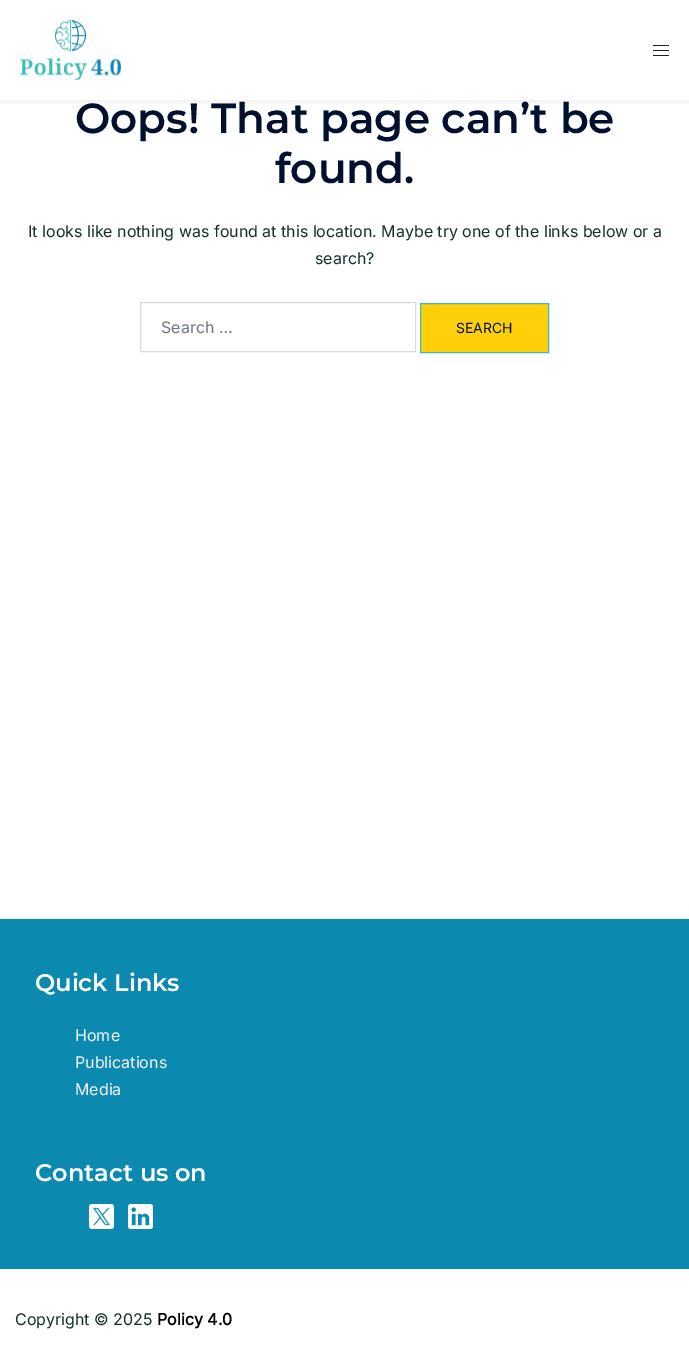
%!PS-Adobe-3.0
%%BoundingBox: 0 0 689 1369
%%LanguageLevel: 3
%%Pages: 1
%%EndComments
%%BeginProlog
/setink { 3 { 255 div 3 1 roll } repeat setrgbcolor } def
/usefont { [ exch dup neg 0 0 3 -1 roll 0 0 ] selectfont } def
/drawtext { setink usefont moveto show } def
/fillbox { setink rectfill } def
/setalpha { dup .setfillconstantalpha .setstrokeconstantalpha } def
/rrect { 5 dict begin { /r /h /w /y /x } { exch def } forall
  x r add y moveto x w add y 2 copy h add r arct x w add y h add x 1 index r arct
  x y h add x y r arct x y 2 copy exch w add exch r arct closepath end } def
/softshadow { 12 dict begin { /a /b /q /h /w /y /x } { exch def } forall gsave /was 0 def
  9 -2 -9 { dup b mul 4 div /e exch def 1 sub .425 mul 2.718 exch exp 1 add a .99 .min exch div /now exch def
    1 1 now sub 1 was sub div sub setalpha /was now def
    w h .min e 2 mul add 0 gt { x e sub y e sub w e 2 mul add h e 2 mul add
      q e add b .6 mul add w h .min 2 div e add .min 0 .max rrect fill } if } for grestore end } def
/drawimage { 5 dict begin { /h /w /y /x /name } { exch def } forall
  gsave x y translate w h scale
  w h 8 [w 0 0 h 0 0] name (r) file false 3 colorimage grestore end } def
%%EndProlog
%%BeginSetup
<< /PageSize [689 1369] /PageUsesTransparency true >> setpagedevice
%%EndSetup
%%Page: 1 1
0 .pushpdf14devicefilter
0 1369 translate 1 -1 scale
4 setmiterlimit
0 0 689 1369 255 255 255 fillbox
gsave
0 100 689 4 rectclip
0 0 0 setink
0 0 689 100 0 5 0.1 softshadow
grestore
(assets/img1.rgb) 20 20 101 60 drawimage
653 45 16 1 33 33 33 fillbox
653 50 16 1 33 33 33 fillbox
653 55 16 1 33 33 33 fillbox
(Oops! That page can’t be) 75 133 /Montserrat-Thin 42 0 16 46 drawtext
(found.) 275 183 /Montserrat-Thin 42 0 16 46 drawtext
(It looks like nothing was found at this location. Maybe try one of the links below or a) 28 237 /Inter-Regular 16 20 46 44 drawtext
(search?) 315 264 /Inter-Regular 16 20 46 44 drawtext
219 219 219 setink
140.5 302.5 275 49 rectstroke
(Search …) 161 333 /Inter-Regular 16 109 118 133 drawtext
255 208 10 setink
420.5 303.5 moveto 548.5 303.5 lineto 548.5 352.5 lineto 420.5 352.5 lineto closepath gsave fill grestore
57 190 180 setink
stroke
(SEARCH) 456 333 /Inter-Regular 14 0 16 46 drawtext
0 919 689 350 12 137 175 fillbox
(Quick Links) 35 991 /Montserrat-Thin 24 255 255 255 drawtext
(Home) 75 1041 /Inter-Regular 16 248 248 248 drawtext
(Publications) 75 1068 /Inter-Regular 16 248 248 248 drawtext
(Media) 75 1095 /Inter-Regular 16 248 248 248 drawtext
(Contact us on) 35 1181 /Montserrat-Thin 24 255 255 255 drawtext
(assets/img2.rgb) 89 1204 25 25 drawimage
(assets/img3.rgb) 128 1204 25 25 drawimage
(Copyright © 2025) 15 1325 /Inter-Regular 16 20 46 44 drawtext
(Policy 4.0) 157 1325 /Inter-Bold 16 0 0 0 drawtext
.poppdf14devicefilter showpage
%%EOF
